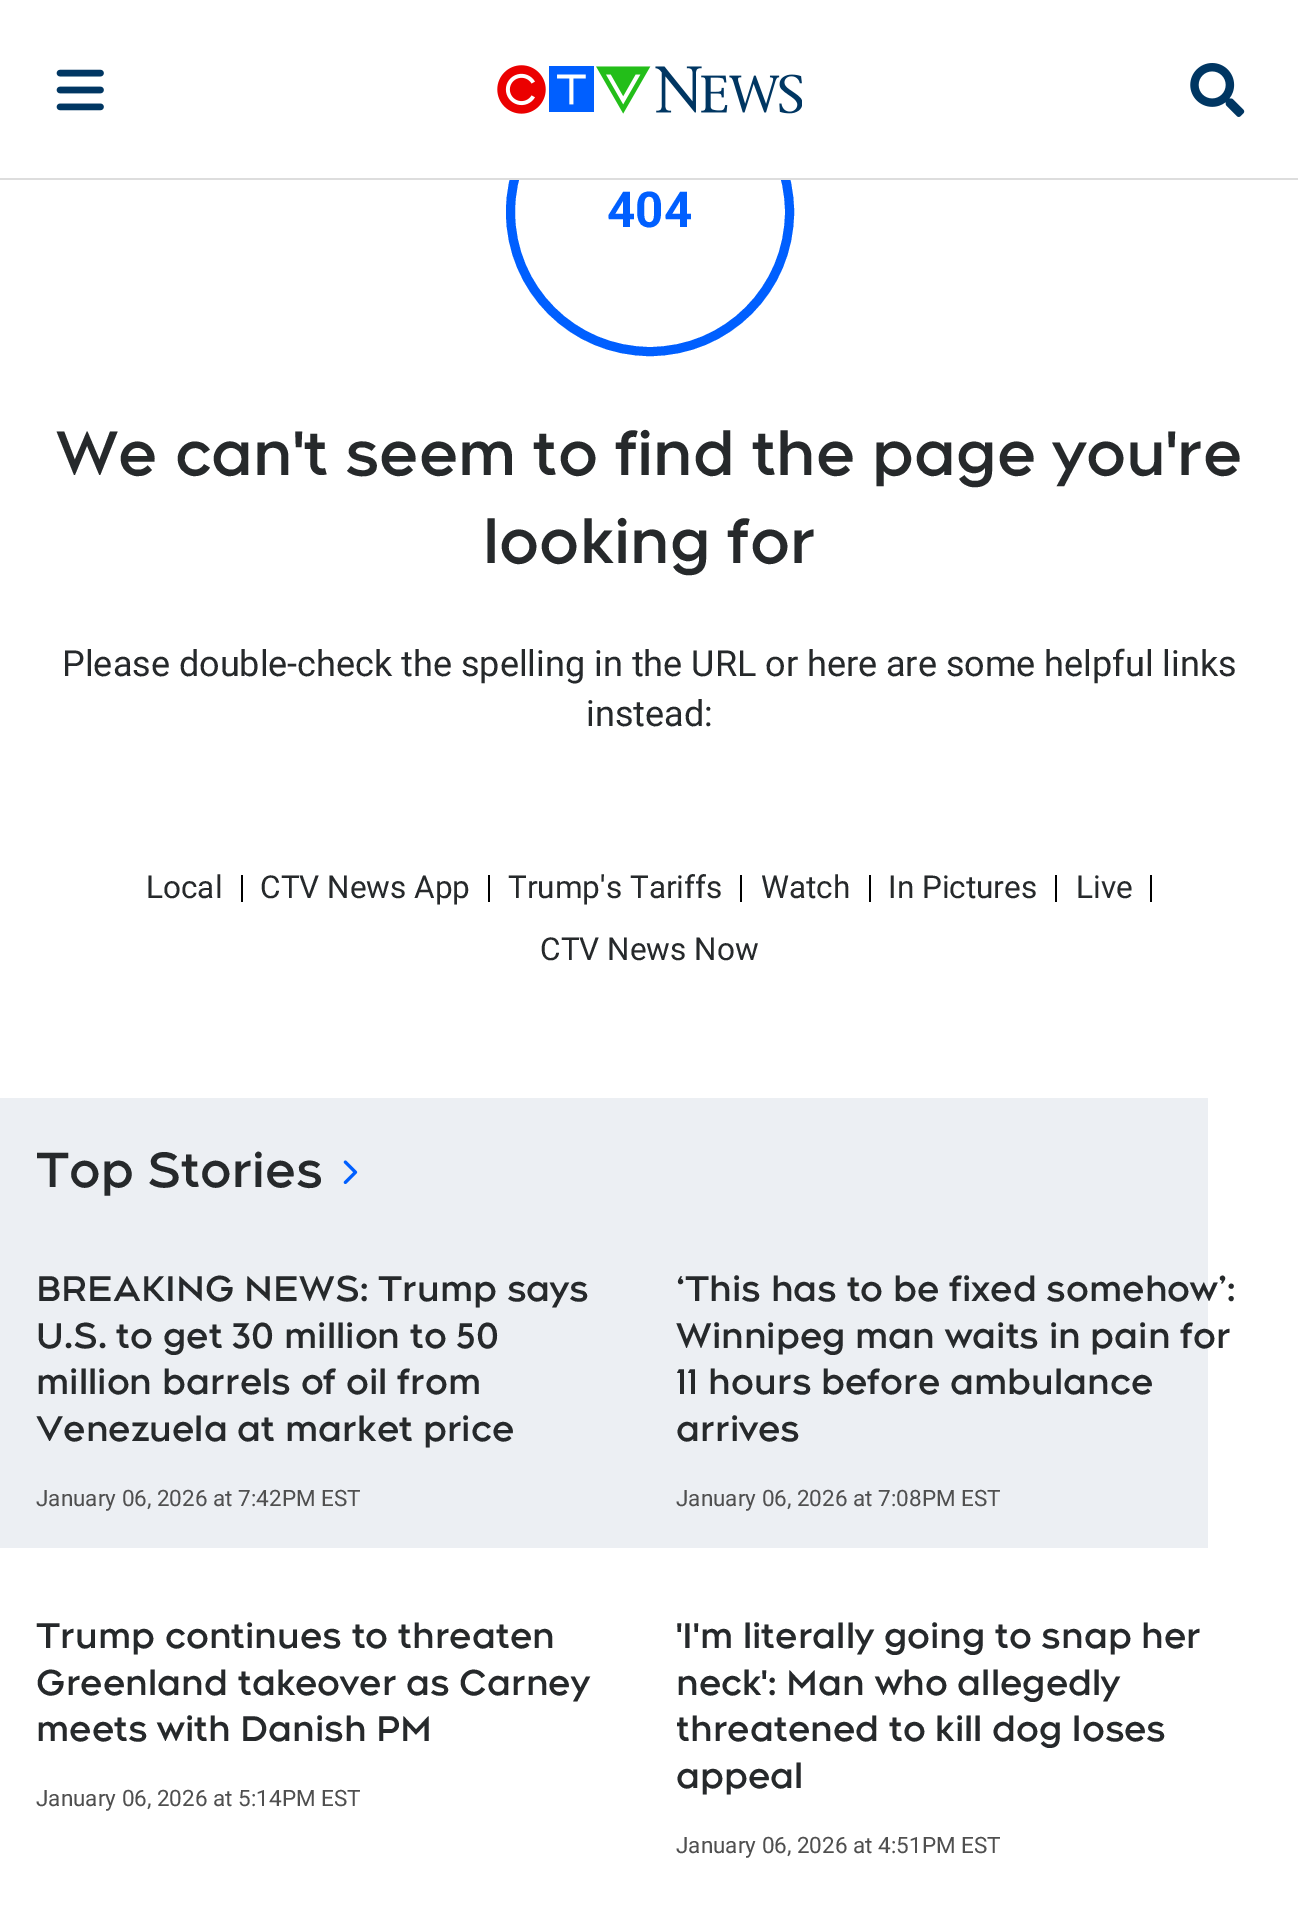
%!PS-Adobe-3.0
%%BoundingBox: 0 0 1298 1929
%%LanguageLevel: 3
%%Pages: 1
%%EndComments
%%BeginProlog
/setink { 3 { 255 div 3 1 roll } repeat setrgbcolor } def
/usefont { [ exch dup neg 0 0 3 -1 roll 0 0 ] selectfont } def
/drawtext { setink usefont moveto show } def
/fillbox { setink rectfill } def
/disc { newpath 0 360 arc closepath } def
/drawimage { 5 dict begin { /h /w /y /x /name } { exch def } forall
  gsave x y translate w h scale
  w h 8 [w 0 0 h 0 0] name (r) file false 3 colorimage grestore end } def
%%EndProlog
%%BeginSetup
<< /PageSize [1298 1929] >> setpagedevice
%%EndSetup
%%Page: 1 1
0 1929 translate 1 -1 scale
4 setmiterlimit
0 0 1298 1929 255 255 255 fillbox
0 95 255 setink
9 setlinewidth
650 212 139.5 disc stroke
510 68 280 110 255 255 255 fillbox
0 178 1298 2 221 221 221 fillbox
(assets/img1.rgb) 56 69 48 42 drawimage
(assets/img2.rgb) 497 65 305 49 drawimage
(assets/img3.rgb) 1190 63 55 54 drawimage
(404) 607 227 /Roboto-Bold 49.5 0 95 255 drawtext
(We can't seem to find the page you're) 56 475 /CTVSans-Bold 63 38 41 43 drawtext
(looking for) 483 563 /CTVSans-Bold 63 38 41 43 drawtext
(Please double-check the spelling in the URL or here are some helpful links) 62 676 /Roboto-Regular 36 38 41 43 drawtext
(instead:) 586 726 /Roboto-Regular 36 38 41 43 drawtext
(Local) 146 898 /Roboto-Regular 31.5 38 41 43 drawtext
241 875 2 27 0 0 0 fillbox
(CTV News App) 260 898 /Roboto-Regular 31.5 38 41 43 drawtext
488 875 2 27 0 0 0 fillbox
(Trump's Tariffs) 508 898 /Roboto-Regular 31.5 38 41 43 drawtext
740 875 2 27 0 0 0 fillbox
(Watch) 761 898 /Roboto-Regular 31.5 38 41 43 drawtext
869 875 2 27 0 0 0 fillbox
(In Pictures) 888 898 /Roboto-Regular 31.5 38 41 43 drawtext
1055 875 2 27 0 0 0 fillbox
(Live) 1076 898 /Roboto-Regular 31.5 38 41 43 drawtext
1150 875 2 27 0 0 0 fillbox
(CTV News Now) 540 960 /Roboto-Regular 31.5 38 41 43 drawtext
0 1098 1208 450 236 239 243 fillbox
(Top Stories) 36 1187 /CTVSans-Bold 49.5 38 41 43 drawtext
(assets/img4.rgb) 343 1160 15 24 drawimage
(BREAKING NEWS: Trump says) 36 1301 /CTVSans-Bold 36 38 41 43 drawtext
(U.S. to get 30 million to 50) 36 1348 /CTVSans-Bold 36 38 41 43 drawtext
(million barrels of oil from) 36 1394 /CTVSans-Bold 36 38 41 43 drawtext
(Venezuela at market price) 36 1441 /CTVSans-Bold 36 38 41 43 drawtext
(January 06, 2026 at 7:42PM EST) 36 1506 /Roboto-Regular 22.5 79 79 79 drawtext
(‘This has to be fixed somehow’:) 676 1301 /CTVSans-Bold 36 38 41 43 drawtext
(Winnipeg man waits in pain for) 676 1348 /CTVSans-Bold 36 38 41 43 drawtext
(11 hours before ambulance) 676 1394 /CTVSans-Bold 36 38 41 43 drawtext
(arrives) 676 1441 /CTVSans-Bold 36 38 41 43 drawtext
(January 06, 2026 at 7:08PM EST) 676 1506 /Roboto-Regular 22.5 79 79 79 drawtext
(Trump continues to threaten) 36 1648 /CTVSans-Bold 36 38 41 43 drawtext
(Greenland takeover as Carney) 36 1695 /CTVSans-Bold 36 38 41 43 drawtext
(meets with Danish PM) 36 1741 /CTVSans-Bold 36 38 41 43 drawtext
(January 06, 2026 at 5:14PM EST) 36 1806 /Roboto-Regular 22.5 79 79 79 drawtext
('I'm literally going to snap her) 676 1648 /CTVSans-Bold 36 38 41 43 drawtext
(neck': Man who allegedly) 676 1695 /CTVSans-Bold 36 38 41 43 drawtext
gsave
677 1613 585 189 rectclip
(threatened to kill dog loses) 676 1741 /CTVSans-Bold 36 38 41 43 drawtext
grestore
(appeal) 676 1788 /CTVSans-Bold 36 38 41 43 drawtext
(January 06, 2026 at 4:51PM EST) 676 1853 /Roboto-Regular 22.5 79 79 79 drawtext
showpage
%%EOF
